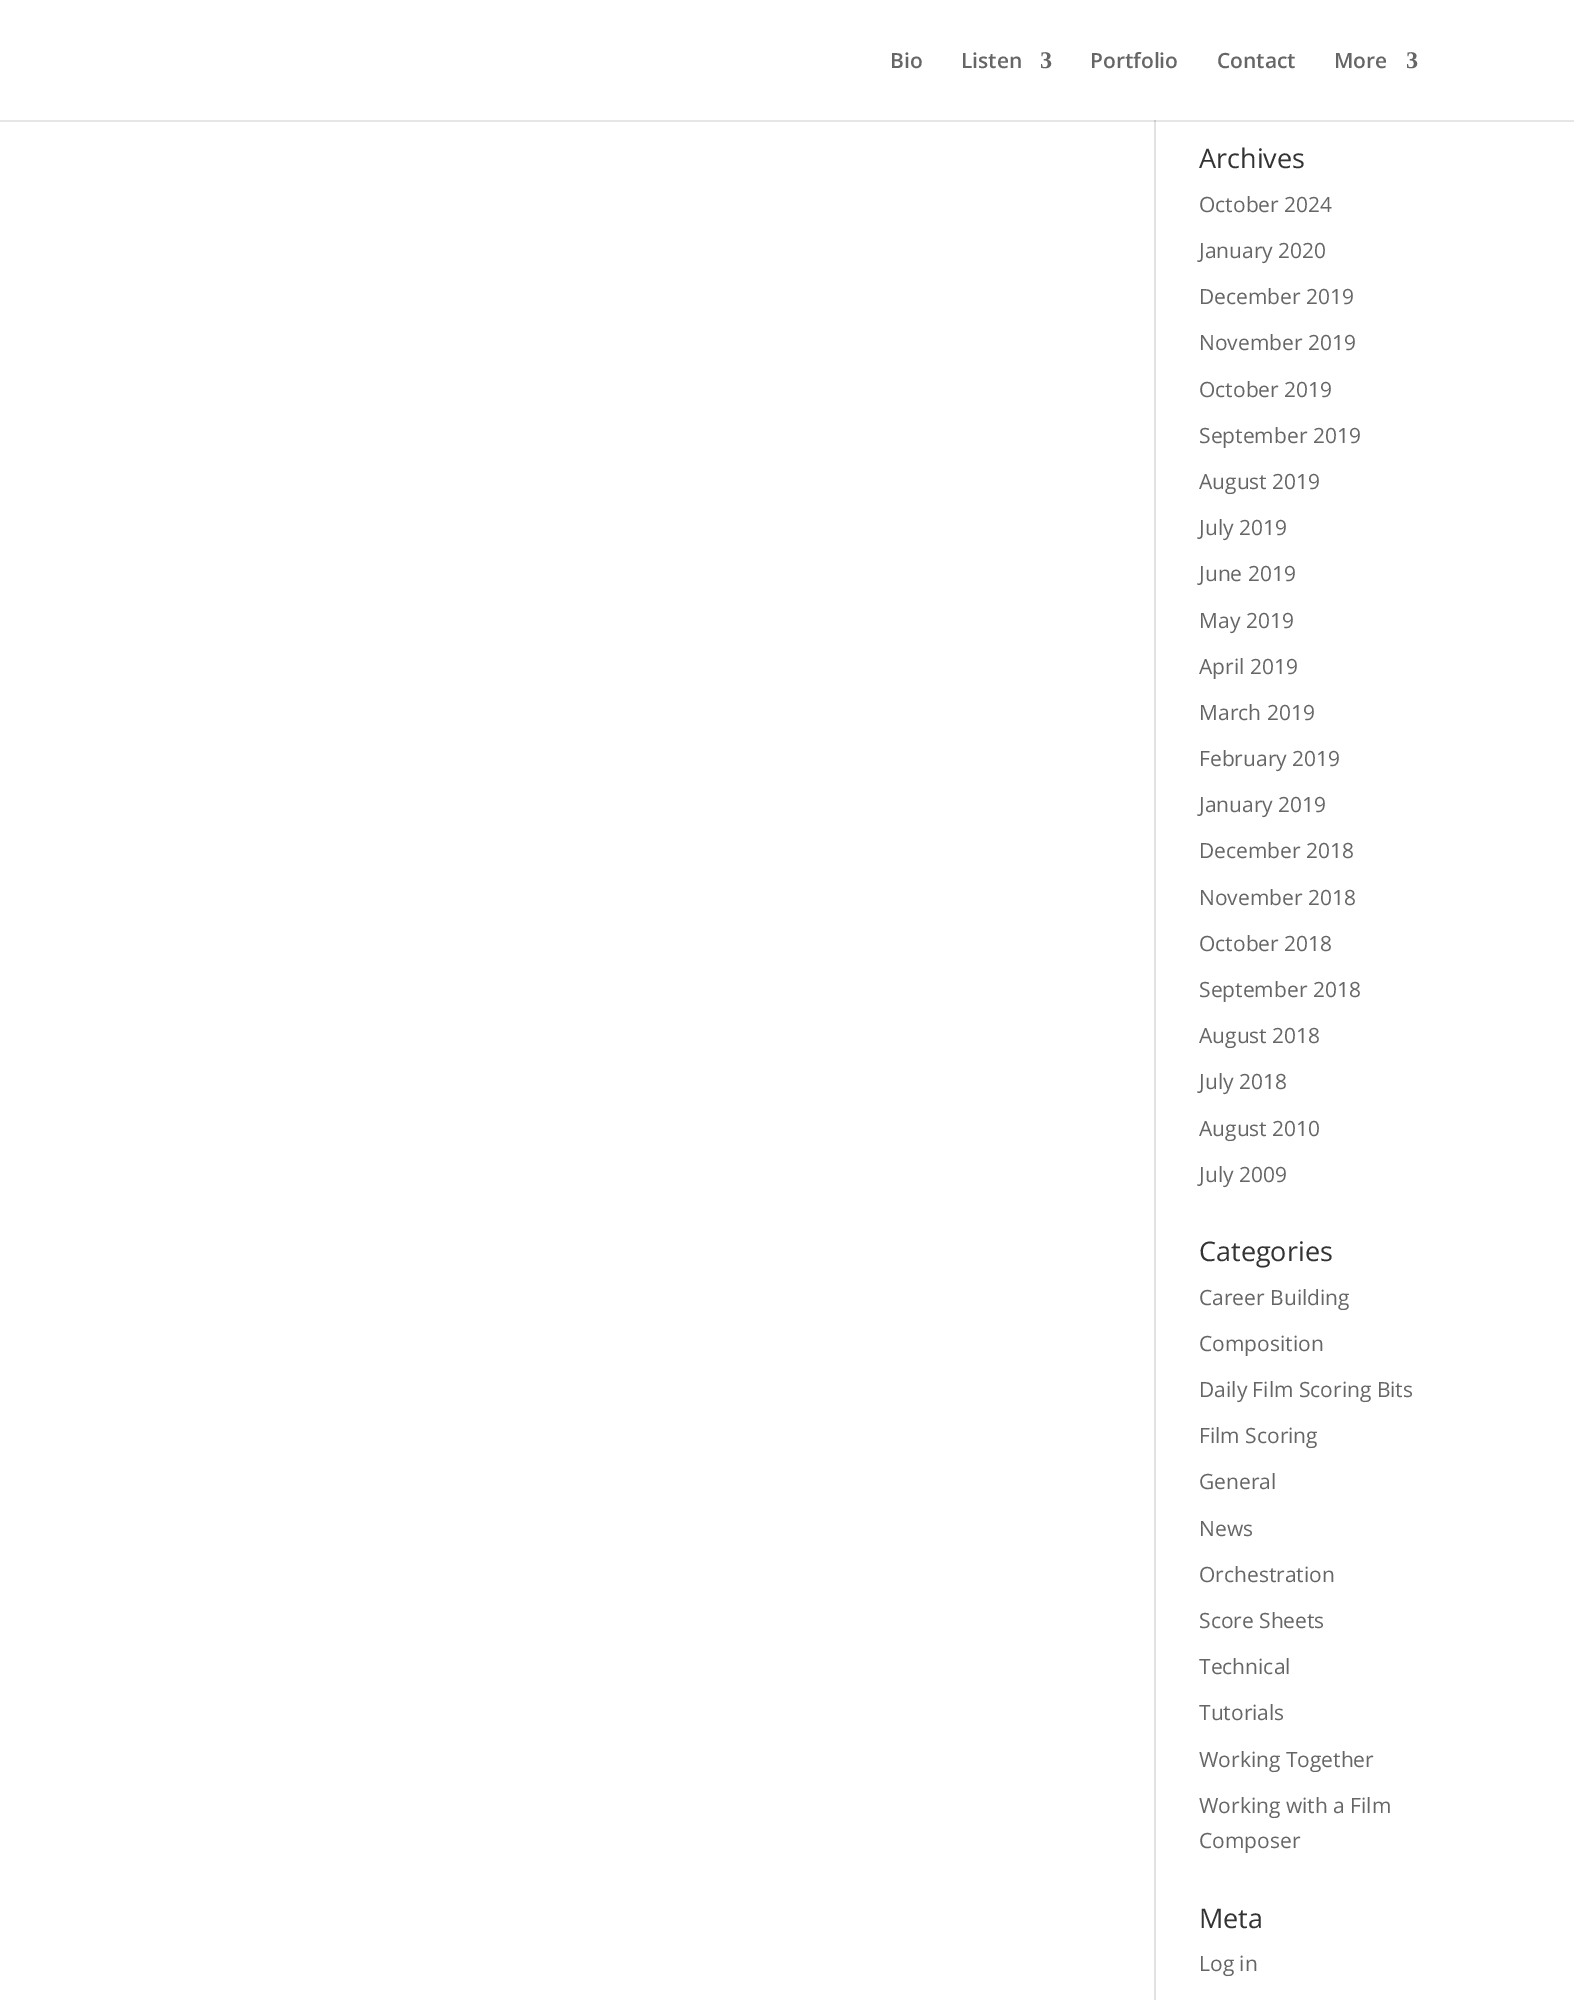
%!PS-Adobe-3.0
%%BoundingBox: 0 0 1574 2000
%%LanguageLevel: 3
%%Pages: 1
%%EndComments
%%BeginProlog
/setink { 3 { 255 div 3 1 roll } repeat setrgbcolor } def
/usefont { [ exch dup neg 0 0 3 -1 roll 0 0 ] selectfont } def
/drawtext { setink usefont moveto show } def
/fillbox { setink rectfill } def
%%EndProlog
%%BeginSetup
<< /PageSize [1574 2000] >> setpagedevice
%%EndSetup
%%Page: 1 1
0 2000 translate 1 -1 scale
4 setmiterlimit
0 0 1574 2000 255 255 255 fillbox
0 120 1574 2 230 230 230 fillbox
(Bio) 890 68 /OpenSans-SemiBold 21 102 102 102 drawtext
(Listen) 961 68 /OpenSans-SemiBold 21 102 102 102 drawtext
(3) 1040 68 /LiberationSerif-Bold 24 102 102 102 drawtext
(Portfolio) 1090 68 /OpenSans-SemiBold 21 102 102 102 drawtext
(Contact) 1217 68 /OpenSans-SemiBold 21 102 102 102 drawtext
(More) 1334 68 /OpenSans-SemiBold 21 102 102 102 drawtext
(3) 1406 68 /LiberationSerif-Bold 24 102 102 102 drawtext
1154 122 2 1878 226 226 226 fillbox
1154 120 2 2 203 203 203 fillbox
(Archives) 1199 168 /OpenSans-Regular 27 51 51 51 drawtext
(October 2024) 1199 212 /OpenSans-Regular 21 102 102 102 drawtext
(January 2020) 1199 258 /OpenSans-Regular 21 102 102 102 drawtext
(December 2019) 1199 304 /OpenSans-Regular 21 102 102 102 drawtext
(November 2019) 1199 350 /OpenSans-Regular 21 102 102 102 drawtext
(October 2019) 1199 397 /OpenSans-Regular 21 102 102 102 drawtext
(September 2019) 1199 443 /OpenSans-Regular 21 102 102 102 drawtext
(August 2019) 1199 489 /OpenSans-Regular 21 102 102 102 drawtext
(July 2019) 1199 535 /OpenSans-Regular 21 102 102 102 drawtext
(June 2019) 1199 581 /OpenSans-Regular 21 102 102 102 drawtext
(May 2019) 1199 628 /OpenSans-Regular 21 102 102 102 drawtext
(April 2019) 1199 674 /OpenSans-Regular 21 102 102 102 drawtext
(March 2019) 1199 720 /OpenSans-Regular 21 102 102 102 drawtext
(February 2019) 1199 766 /OpenSans-Regular 21 102 102 102 drawtext
(January 2019) 1199 812 /OpenSans-Regular 21 102 102 102 drawtext
(December 2018) 1199 858 /OpenSans-Regular 21 102 102 102 drawtext
(November 2018) 1199 905 /OpenSans-Regular 21 102 102 102 drawtext
(October 2018) 1199 951 /OpenSans-Regular 21 102 102 102 drawtext
(September 2018) 1199 997 /OpenSans-Regular 21 102 102 102 drawtext
(August 2018) 1199 1043 /OpenSans-Regular 21 102 102 102 drawtext
(July 2018) 1199 1089 /OpenSans-Regular 21 102 102 102 drawtext
(August 2010) 1199 1136 /OpenSans-Regular 21 102 102 102 drawtext
(July 2009) 1199 1182 /OpenSans-Regular 21 102 102 102 drawtext
(Categories) 1199 1261 /OpenSans-Regular 27 51 51 51 drawtext
(Career Building) 1199 1305 /OpenSans-Regular 21 102 102 102 drawtext
(Composition) 1199 1351 /OpenSans-Regular 21 102 102 102 drawtext
(Daily Film Scoring Bits) 1199 1397 /OpenSans-Regular 21 102 102 102 drawtext
(Film Scoring) 1199 1443 /OpenSans-Regular 21 102 102 102 drawtext
(General) 1199 1489 /OpenSans-Regular 21 102 102 102 drawtext
(News) 1199 1536 /OpenSans-Regular 21 102 102 102 drawtext
(Orchestration) 1199 1582 /OpenSans-Regular 21 102 102 102 drawtext
(Score Sheets) 1199 1628 /OpenSans-Regular 21 102 102 102 drawtext
(Technical) 1199 1674 /OpenSans-Regular 21 102 102 102 drawtext
(Tutorials) 1199 1720 /OpenSans-Regular 21 102 102 102 drawtext
(Working Together) 1199 1767 /OpenSans-Regular 21 102 102 102 drawtext
(Working with a Film) 1199 1813 /OpenSans-Regular 21 102 102 102 drawtext
(Composer) 1199 1848 /OpenSans-Regular 21 102 102 102 drawtext
(Meta) 1199 1928 /OpenSans-Regular 27 51 51 51 drawtext
(Log in) 1199 1971 /OpenSans-Regular 21 102 102 102 drawtext
showpage
%%EOF
